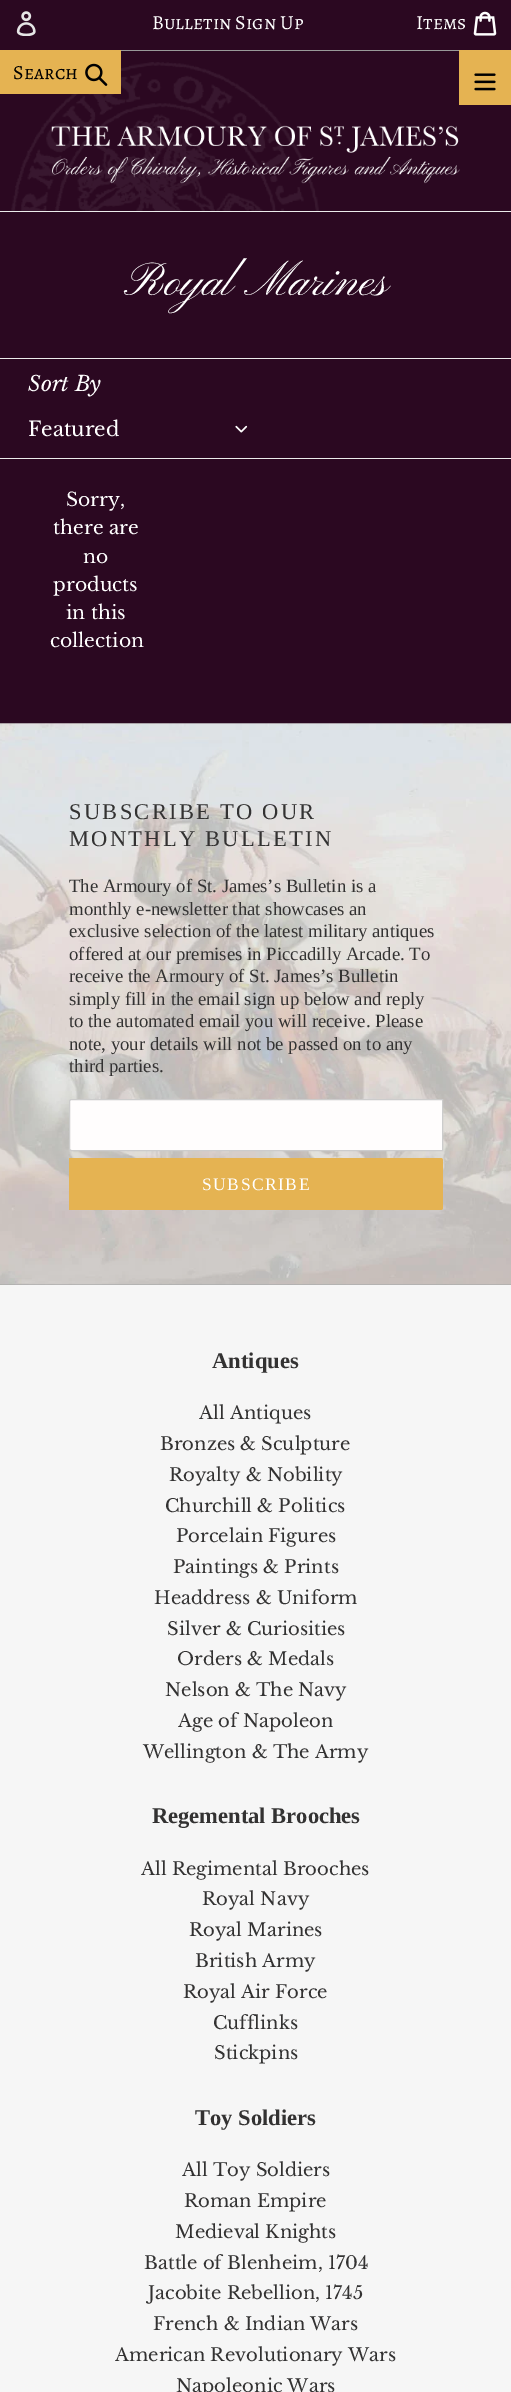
%!PS-Adobe-3.0
%%BoundingBox: 0 0 511 2392
%%LanguageLevel: 3
%%Pages: 1
%%EndComments
%%BeginProlog
/setink { 3 { 255 div 3 1 roll } repeat setrgbcolor } def
/usefont { [ exch dup neg 0 0 3 -1 roll 0 0 ] selectfont } def
/drawtext { setink usefont moveto show } def
/fillbox { setink rectfill } def
/drawimage { 5 dict begin { /h /w /y /x /name } { exch def } forall
  gsave x y translate w h scale
  w h 8 [w 0 0 h 0 0] name (r) file false 3 colorimage grestore end } def
%%EndProlog
%%BeginSetup
<< /PageSize [511 2392] >> setpagedevice
%%EndSetup
%%Page: 1 1
0 2392 translate 1 -1 scale
4 setmiterlimit
0 0 511 2392 43 8 33 fillbox
(assets/img1.rgb) 11 62 308 149 drawimage
0 211 511 1 235 235 235 fillbox
121 50 338 1 153 153 153 fillbox
(assets/img2.rgb) 16 11 20 25 drawimage
(Bulletin Sign Up) 152 29 /AlegreyaSC-Regular 20 255 255 255 drawtext
(Items) 416 29 /AlegreyaSC-Regular 20 255 255 255 drawtext
(assets/img3.rgb) 473 11 24 25 drawimage
0 50 121 44 229 179 82 fillbox
(Search) 13 79 /AlegreyaSC-Regular 20 0 0 0 drawtext
(assets/img4.rgb) 85 63 23 23 drawimage
459 50 52 55 229 179 82 fillbox
(assets/img5.rgb) 474 73 22 18 drawimage
(assets/img6.rgb) 51 125 409 59 drawimage
(Royal Marines) 123 295 /PinyonScript-Regular 47.5 255 255 255 drawtext
0 358 511 1 235 235 235 fillbox
0 458 511 1 235 235 235 fillbox
(Sort By) 28 391 /LibreBaskerville-Italic 21 255 255 255 drawtext
(Featured) 28 436 /LibreBaskerville-Regular 20 255 255 255 drawtext
(assets/img7.rgb) 235 425 13 8 drawimage
(Sorry,) 66 506 /LibreBaskerville-Regular 18.75 255 255 255 drawtext
(there are) 53 534 /LibreBaskerville-Regular 18.75 255 255 255 drawtext
(no) 83 563 /LibreBaskerville-Regular 18.75 255 255 255 drawtext
(products) 53 591 /LibreBaskerville-Regular 18.75 255 255 255 drawtext
(in this) 66 619 /LibreBaskerville-Regular 18.75 255 255 255 drawtext
(collection) 50 647 /LibreBaskerville-Regular 18.75 255 255 255 drawtext
0 1285 511 1107 246 246 246 fillbox
0 1284 511 1 153 153 153 fillbox
(assets/img8.rgb) 0 723 511 562 drawimage
/LiberationSerif-Regular 22.5 usefont
51 50 50 setink
69 819 moveto 2.25 0 (SUBSCRIBE TO OUR) ashow
69 846 moveto 2.25 0 (MONTHLY BULLETIN) ashow
(The Armoury of St. James’s Bulletin is a) 69 892 /LiberationSerif-Regular 18.75 51 50 50 drawtext
(monthly e-newsletter that showcases an) 69 915 /LiberationSerif-Regular 18.75 51 50 50 drawtext
(exclusive selection of the latest military antiques) 69 937 /LiberationSerif-Regular 18.75 51 50 50 drawtext
(offered at our premises in Piccadilly Arcade. To) 69 960 /LiberationSerif-Regular 18.75 51 50 50 drawtext
(receive the Armoury of St. James’s Bulletin) 69 982 /LiberationSerif-Regular 18.75 51 50 50 drawtext
(simply fill in the email sign up below and reply) 69 1005 /LiberationSerif-Regular 18.75 51 50 50 drawtext
(to the automated email you will receive. Please) 69 1027 /LiberationSerif-Regular 18.75 51 50 50 drawtext
(note, your details will not be passed on to any) 69 1050 /LiberationSerif-Regular 18.75 51 50 50 drawtext
(third parties.) 69 1072 /LiberationSerif-Regular 18.75 51 50 50 drawtext
255 253 253 setink
71.5 1099.5 moveto 442.5 1099.5 lineto 442.5 1150.5 lineto 71.5 1150.5 lineto 70.5 1150.5 69.5 1149.5 69.5 1148.5 curveto 69.5 1101.5 lineto 69.5 1100.5 70.5 1099.5 71.5 1099.5 curveto closepath gsave fill grestore
204 204 204 setink
stroke
229 179 82 setink
69 1158 moveto 440.5 1158 lineto 442 1158 443 1159 443 1160.5 curveto 443 1207.5 lineto 443 1209 442 1210 440.5 1210 curveto 69 1210 lineto closepath fill
/LiberationSerif-Regular 17.5 usefont
255 255 255 setink
202 1190 moveto 1.5 0 (SUBSCRIBE) ashow
(Antiques) 212 1368 /LiberationSerif-Bold 22.5 51 50 50 drawtext
(All Antiques) 199 1419 /LibreBaskerville-Regular 18 51 50 50 drawtext
(Bronzes & Sculpture) 160 1450 /LibreBaskerville-Regular 18 51 50 50 drawtext
(Royalty & Nobility) 169 1481 /LibreBaskerville-Regular 18 51 50 50 drawtext
(Churchill & Politics) 165 1512 /LibreBaskerville-Regular 18 51 50 50 drawtext
(Porcelain Figures) 176 1542 /LibreBaskerville-Regular 18 51 50 50 drawtext
(Paintings & Prints) 173 1573 /LibreBaskerville-Regular 18 51 50 50 drawtext
(Headdress & Uniform) 154 1604 /LibreBaskerville-Regular 18 51 50 50 drawtext
(Silver & Curiosities) 167 1635 /LibreBaskerville-Regular 18 51 50 50 drawtext
(Orders & Medals) 177 1665 /LibreBaskerville-Regular 18 51 50 50 drawtext
(Nelson & The Navy) 165 1696 /LibreBaskerville-Regular 18 51 50 50 drawtext
(Age of Napoleon) 178 1727 /LibreBaskerville-Regular 18 51 50 50 drawtext
(Wellington & The Army) 143 1758 /LibreBaskerville-Regular 18 51 50 50 drawtext
(Regemental Brooches) 152 1823 /LiberationSerif-Bold 22.5 51 50 50 drawtext
(All Regimental Brooches) 141 1875 /LibreBaskerville-Regular 18 51 50 50 drawtext
(Royal Navy) 202 1905 /LibreBaskerville-Regular 18 51 50 50 drawtext
(Royal Marines) 189 1936 /LibreBaskerville-Regular 18 51 50 50 drawtext
(British Army) 195 1967 /LibreBaskerville-Regular 18 51 50 50 drawtext
(Royal Air Force) 183 1998 /LibreBaskerville-Regular 18 51 50 50 drawtext
(Cufflinks) 213 2029 /LibreBaskerville-Regular 18 51 50 50 drawtext
(Stickpins) 214 2059 /LibreBaskerville-Regular 18 51 50 50 drawtext
(Toy Soldiers) 195 2125 /LiberationSerif-Bold 22.5 51 50 50 drawtext
(All Toy Soldiers) 182 2176 /LibreBaskerville-Regular 18 51 50 50 drawtext
(Roman Empire) 184 2207 /LibreBaskerville-Regular 18 51 50 50 drawtext
(Medieval Knights) 175 2238 /LibreBaskerville-Regular 18 51 50 50 drawtext
(Battle of Blenheim, 1704) 144 2269 /LibreBaskerville-Regular 18 51 50 50 drawtext
(Jacobite Rebellion, 1745) 148 2299 /LibreBaskerville-Regular 18 51 50 50 drawtext
(French & Indian Wars) 153 2330 /LibreBaskerville-Regular 18 51 50 50 drawtext
(American Revolutionary Wars) 115 2361 /LibreBaskerville-Regular 18 51 50 50 drawtext
(Napoleonic Wars) 176 2392 /LibreBaskerville-Regular 18 51 50 50 drawtext
showpage
%%EOF
